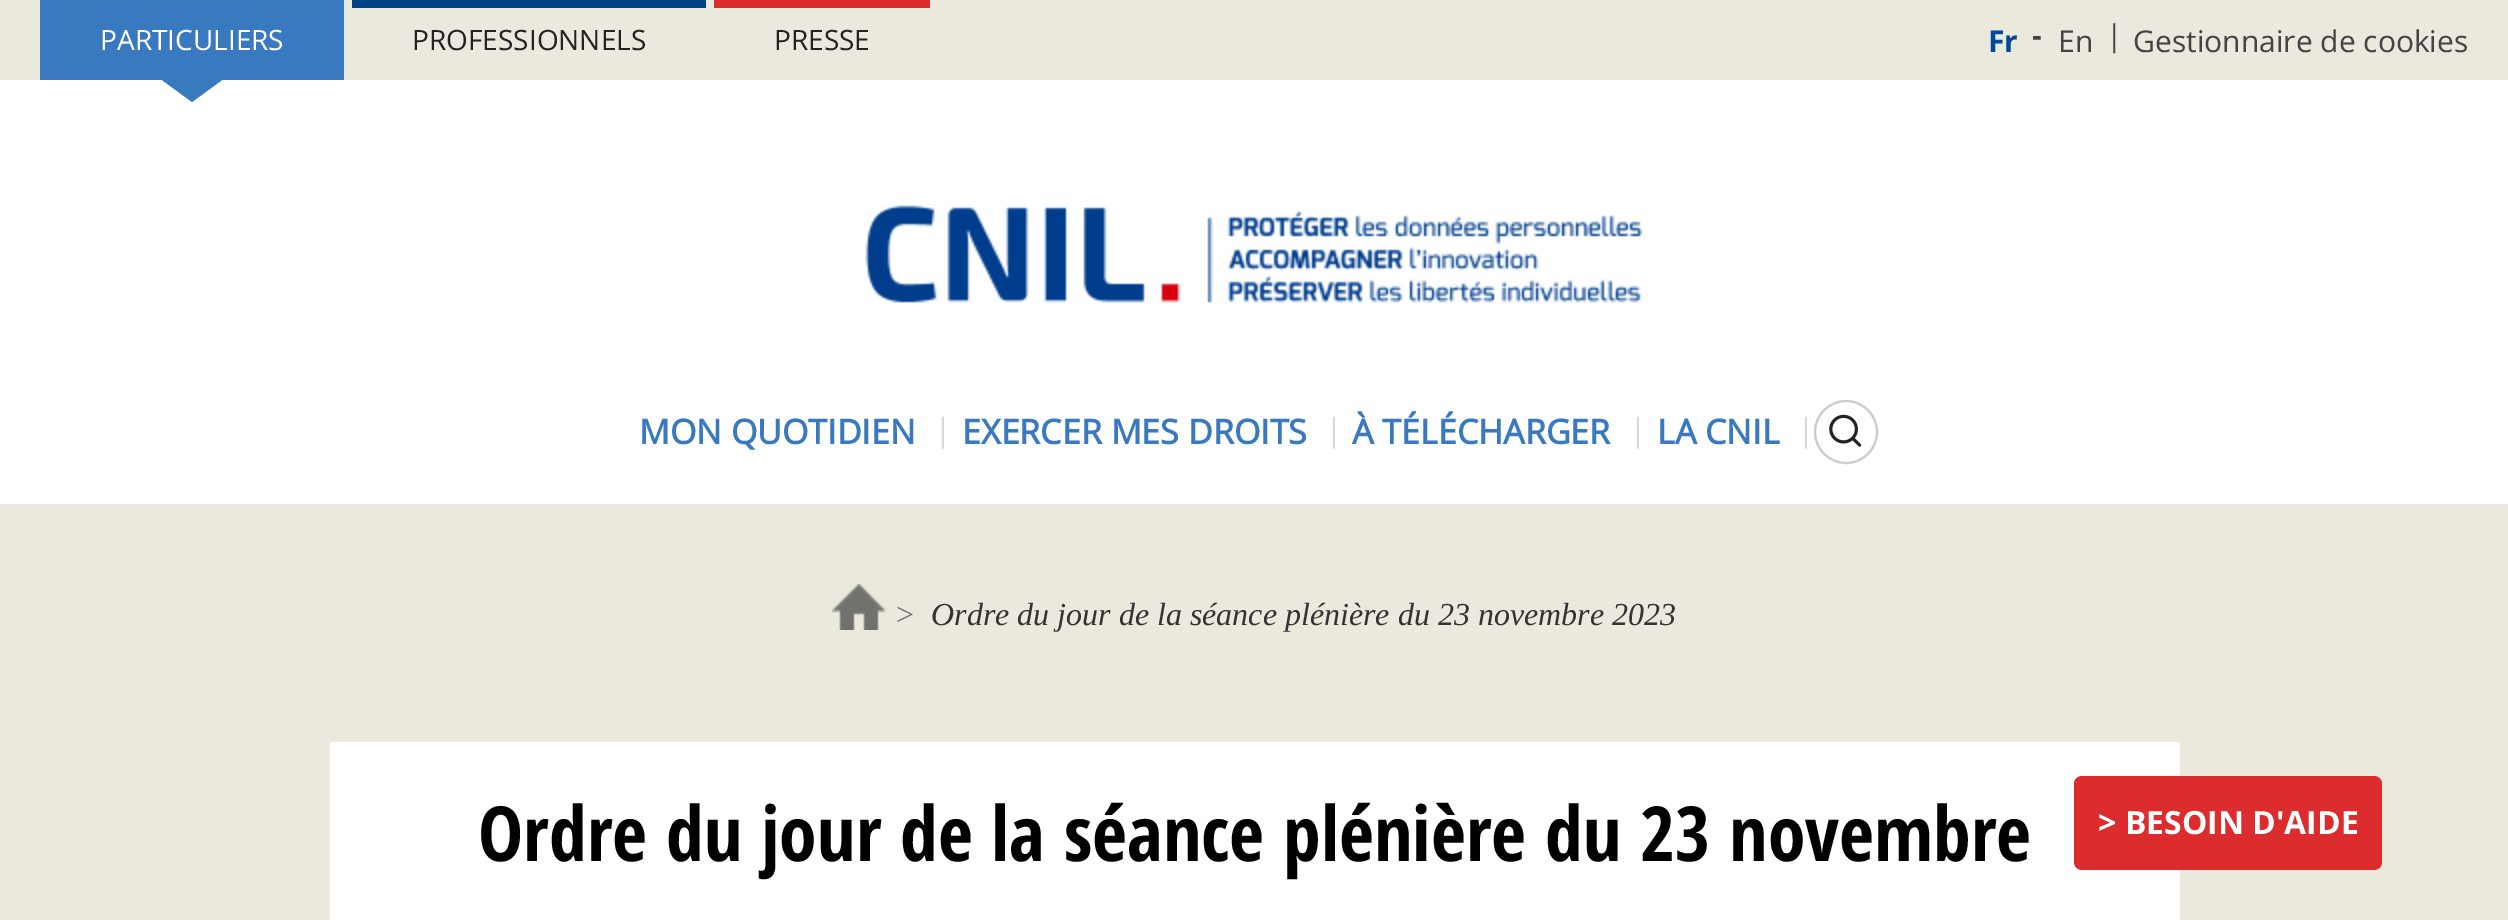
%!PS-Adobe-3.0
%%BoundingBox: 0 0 2508 920
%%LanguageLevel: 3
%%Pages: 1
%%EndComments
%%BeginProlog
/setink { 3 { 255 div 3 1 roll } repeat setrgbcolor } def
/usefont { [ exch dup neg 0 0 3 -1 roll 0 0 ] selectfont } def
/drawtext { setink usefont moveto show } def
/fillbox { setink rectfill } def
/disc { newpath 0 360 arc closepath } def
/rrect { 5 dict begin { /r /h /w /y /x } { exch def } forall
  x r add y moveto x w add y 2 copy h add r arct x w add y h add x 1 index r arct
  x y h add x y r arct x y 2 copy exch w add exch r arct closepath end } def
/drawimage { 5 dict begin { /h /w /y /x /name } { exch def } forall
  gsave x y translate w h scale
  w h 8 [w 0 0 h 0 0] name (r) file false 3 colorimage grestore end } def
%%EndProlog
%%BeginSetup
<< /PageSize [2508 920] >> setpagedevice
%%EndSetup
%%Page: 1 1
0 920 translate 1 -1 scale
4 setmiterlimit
0 0 2508 920 255 255 255 fillbox
0 0 2508 80 235 233 222 fillbox
40 0 304 80 56 121 191 fillbox
(PARTICULIERS) 100 50 /OpenSans-Regular 28 255 255 255 drawtext
56 121 191 setink
162 80 moveto 222 80 lineto 192 102 lineto closepath fill
352 0 354 8 0 64 132 fillbox
(PROFESSIONNELS) 412 50 /OpenSans-Regular 28 34 34 34 drawtext
714 0 216 8 221 44 45 fillbox
(PRESSE) 774 50 /OpenSans-Regular 28 34 34 34 drawtext
(Fr) 1988 52 /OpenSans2-Bold 30 0 74 153 drawtext
(-) 2032 46 /OpenSans2-Bold 30 68 68 68 drawtext
(En) 2058 52 /OpenSans-Regular 30 68 68 68 drawtext
(|) 2106 46 /OpenSans-Regular 30 68 68 68 drawtext
(Gestionnaire de cookies) 2133 52 /OpenSans-Regular 30 68 68 68 drawtext
(assets/img1.rgb) 865 205 778 98 drawimage
(MON QUOTIDIEN) 639 444 /OpenSans-Bold 34 56 121 191 drawtext
(|) 934 441 /OpenSans-Regular 32 218 217 215 drawtext
(EXERCER MES DROITS) 962 444 /OpenSans-Bold 34 56 121 191 drawtext
(|) 1325 441 /OpenSans-Regular 32 218 217 215 drawtext
(À TÉLÉCHARGER) 1352 444 /OpenSans-Bold 34 56 121 191 drawtext
(|) 1629 441 /OpenSans-Regular 32 218 217 215 drawtext
(LA CNIL) 1657 444 /OpenSans-Bold 34 56 121 191 drawtext
(|) 1797 441 /OpenSans-Regular 32 218 217 215 drawtext
203 203 203 setink
2 setlinewidth
1846 432 31 disc stroke
(assets/img2.rgb) 1829 414 33 33 drawimage
0 504 2508 416 235 233 222 fillbox
(assets/img3.rgb) 832 584 54 46 drawimage
(>) 894 625 /LiberationSerif-Italic 32 113 113 110 drawtext
(Ordre du jour de la séance plénière du 23 novembre 2023) 931 625 /LiberationSerif-Italic 32 51 51 51 drawtext
330 742 1850 178 255 255 255 fillbox
(Ordre du jour de la séance plénière du 23 novembre) 478 861 /OpenSansCondensed-Bold 76 0 0 0 drawtext
221 44 45 setink
2074 776 308 94 8 rrect fill
(> BESOIN D'AIDE) 2098 834 /OpenSans2-Bold 32 255 255 255 drawtext
showpage
%%EOF
